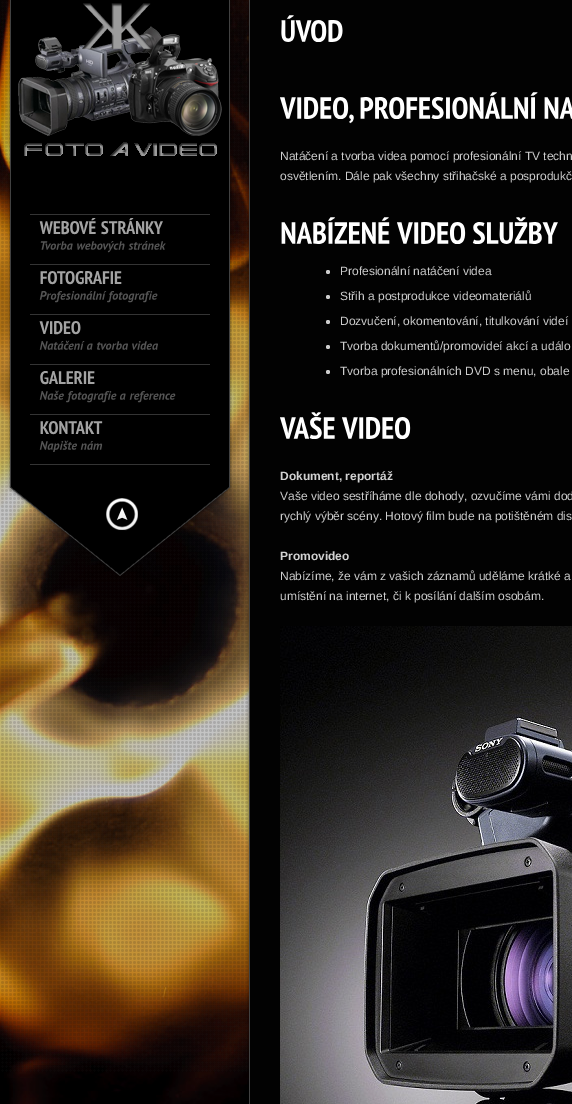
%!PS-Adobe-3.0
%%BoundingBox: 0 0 572 1104
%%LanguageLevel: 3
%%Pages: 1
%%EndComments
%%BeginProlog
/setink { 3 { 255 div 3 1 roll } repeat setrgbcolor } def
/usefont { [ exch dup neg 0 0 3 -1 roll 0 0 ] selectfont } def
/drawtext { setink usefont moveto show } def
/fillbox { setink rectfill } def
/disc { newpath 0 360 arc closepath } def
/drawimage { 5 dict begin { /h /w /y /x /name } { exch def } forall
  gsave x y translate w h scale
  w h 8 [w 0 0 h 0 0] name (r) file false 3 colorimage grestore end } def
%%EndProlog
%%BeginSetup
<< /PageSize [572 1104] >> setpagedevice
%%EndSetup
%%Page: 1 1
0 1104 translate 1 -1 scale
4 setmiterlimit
0 0 572 1104 255 255 255 fillbox
(assets/img1.rgb) 0 0 249 1104 drawimage
(assets/img2.rgb) 0 0 249 1072 drawimage
(assets/img3.rgb) 7 0 226 485 drawimage
(assets/img4.rgb) 18 3 204 153 drawimage
30 214 180 1 52 52 52 fillbox
30 264 180 1 52 52 52 fillbox
(assets/img5.rgb) 39 218 57 17 drawimage
(assets/img6.rgb) 101 218 62 17 drawimage
(assets/img7.rgb) 40 241 33 9 drawimage
(assets/img8.rgb) 77 241 48 12 drawimage
(assets/img9.rgb) 128 241 38 9 drawimage
30 314 180 1 52 52 52 fillbox
(assets/img10.rgb) 40 271 82 14 drawimage
(assets/img11.rgb) 39 291 68 12 drawimage
(assets/img12.rgb) 107 291 51 12 drawimage
30 364 180 1 52 52 52 fillbox
(assets/img13.rgb) 39 321 42 14 drawimage
(assets/img14.rgb) 39 340 46 10 drawimage
(assets/img15.rgb) 87 343 6 7 drawimage
(assets/img16.rgb) 97 341 31 9 drawimage
(assets/img17.rgb) 132 341 26 9 drawimage
30 414 180 1 52 52 52 fillbox
(assets/img18.rgb) 40 371 55 14 drawimage
(assets/img19.rgb) 39 390 25 10 drawimage
(assets/img12.rgb) 66 391 51 12 drawimage
(assets/img15.rgb) 120 393 6 7 drawimage
(assets/img20.rgb) 129 391 47 12 drawimage
30 464 180 1 52 52 52 fillbox
(assets/img21.rgb) 40 421 63 14 drawimage
(assets/img22.rgb) 39 440 38 12 drawimage
(assets/img23.rgb) 80 441 23 9 drawimage
(assets/img24.rgb) 7 485 226 91 drawimage
(assets/img25.rgb) 106 498 32 33 drawimage
(assets/img26.rgb) 246 0 326 1104 drawimage
(assets/img27.rgb) 281 15 62 27 drawimage
(assets/img28.rgb) 280 97 74 27 drawimage
(assets/img29.rgb) 360 92 178 27 drawimage
(assets/img30.rgb) 544 97 28 22 drawimage
(Natáčení a tvorba videa pomocí profesionální TV techn) 280 160 /LiberationSans-Regular 12 204 204 204 drawtext
(osvětlením. Dále pak všechny střihačské a posprodukč) 280 180 /LiberationSans-Regular 12 204 204 204 drawtext
(assets/img31.rgb) 281 217 109 27 drawimage
(assets/img32.rgb) 397 222 69 22 drawimage
(assets/img33.rgb) 472 217 86 27 drawimage
328 272 2 disc fill
(Profesionální natáčení videa) 340 275 /LiberationSans-Regular 12 204 204 204 drawtext
328 297 2 disc fill
(Střih a postprodukce videomateriálů) 340 300 /LiberationSans-Regular 12 204 204 204 drawtext
328 322 2 disc fill
(Dozvučení, okomentování, titulkování videí) 340 325 /LiberationSans-Regular 12 204 204 204 drawtext
328 347 2 disc fill
(Tvorba dokumentů/promovideí akcí a událo) 340 350 /LiberationSans-Regular 12 204 204 204 drawtext
328 372 2 disc fill
(Tvorba profesionálních DVD s menu, obale) 340 375 /LiberationSans-Regular 12 204 204 204 drawtext
(assets/img34.rgb) 280 412 55 27 drawimage
(assets/img32.rgb) 342 417 69 22 drawimage
(Dokument, reportáž) 280 480 /LiberationSans-Bold 12 210 210 210 drawtext
(Vaše video sestříháme dle dohody, ozvučíme vámi dod) 280 500 /LiberationSans-Regular 12 204 204 204 drawtext
(rychlý výběr scény. Hotový film bude na potištěném dis) 280 520 /LiberationSans-Regular 12 204 204 204 drawtext
(Promovideo) 280 560 /LiberationSans-Bold 12 210 210 210 drawtext
(Nabízíme, že vám z vašich záznamů uděláme krátké a) 280 580 /LiberationSans-Regular 12 204 204 204 drawtext
(umístění na internet, či k posílání dalším osobám.) 280 600 /LiberationSans-Regular 12 204 204 204 drawtext
(assets/img35.rgb) 280 626 292 478 drawimage
showpage
%%EOF
